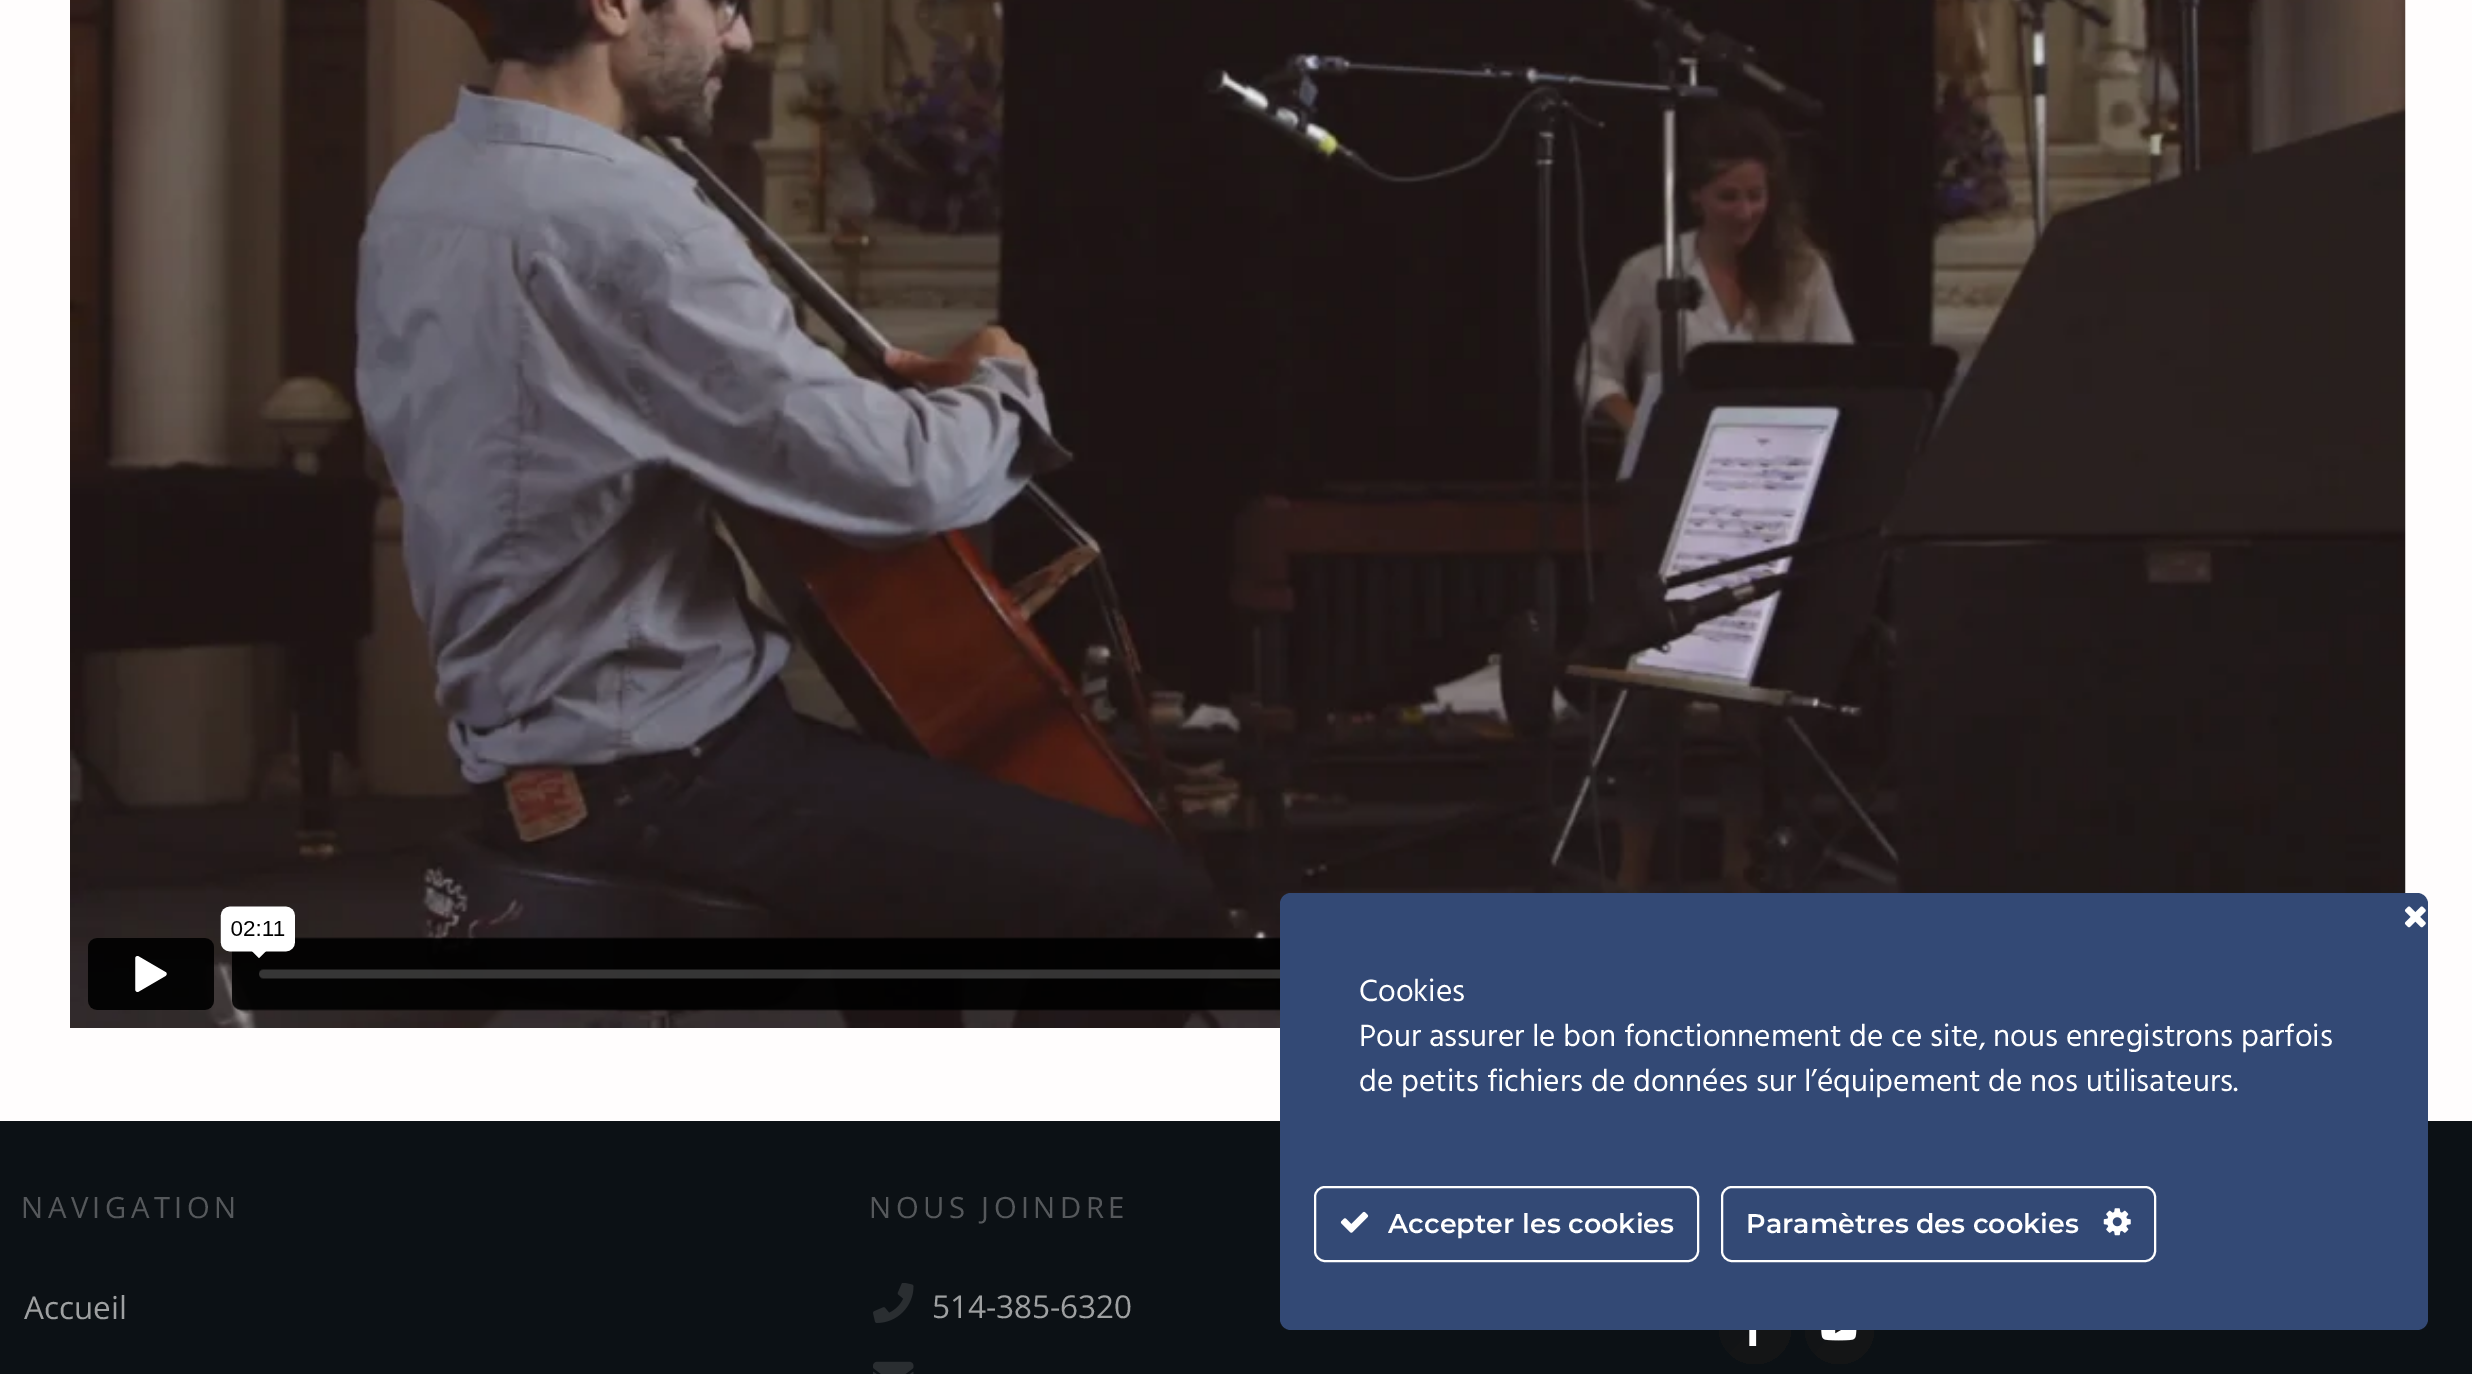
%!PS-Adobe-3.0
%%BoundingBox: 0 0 2472 1374
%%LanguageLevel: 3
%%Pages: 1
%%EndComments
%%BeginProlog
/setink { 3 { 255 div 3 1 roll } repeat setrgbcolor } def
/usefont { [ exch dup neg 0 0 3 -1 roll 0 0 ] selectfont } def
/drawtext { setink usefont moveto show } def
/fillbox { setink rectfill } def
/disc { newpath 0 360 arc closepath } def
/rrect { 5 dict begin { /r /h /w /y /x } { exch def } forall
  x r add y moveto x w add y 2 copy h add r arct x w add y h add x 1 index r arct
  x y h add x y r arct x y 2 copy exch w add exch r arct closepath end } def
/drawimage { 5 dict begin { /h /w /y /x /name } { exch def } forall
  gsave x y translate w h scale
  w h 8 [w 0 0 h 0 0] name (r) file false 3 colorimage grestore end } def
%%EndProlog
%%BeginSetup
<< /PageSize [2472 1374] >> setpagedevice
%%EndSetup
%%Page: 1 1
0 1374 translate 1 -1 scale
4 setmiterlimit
0 0 2472 1374 255 253 253 fillbox
(assets/img4.rgb) 70 0 2336 1028 drawimage
0 1121 2472 253 12 17 21 fillbox
gsave 1755 1328 36 disc clip newpath
<< /ShadingType 2 /ColorSpace /DeviceRGB /Coords [1719 1292 1791 1364] /Extend [true true] /Function << /FunctionType 3 /Domain [0 1] /Functions [<< /FunctionType 2 /Domain [0 1] /C0 [0.071 0.078 0.086] /C1 [0.071 0.078 0.086] /N 1 >> << /FunctionType 2 /Domain [0 1] /C0 [0.078 0.082 0.086] /C1 [0.078 0.082 0.086] /N 1 >>] /Bounds [0.5] /Encode [0 1 0 1] >> >> shfill grestore
gsave 1805 1292 69 72 34.5 rrect clip newpath
<< /ShadingType 2 /ColorSpace /DeviceRGB /Coords [1803 1293 1875 1362] /Extend [true true] /Function << /FunctionType 3 /Domain [0 1] /Functions [<< /FunctionType 2 /Domain [0 1] /C0 [0.071 0.078 0.086] /C1 [0.071 0.078 0.086] /N 1 >> << /FunctionType 2 /Domain [0 1] /C0 [0.078 0.082 0.086] /C1 [0.078 0.082 0.086] /N 1 >>] /Bounds [0.5] /Encode [0 1 0 1] >> >> shfill grestore
51 73 117 setink
1280 893 1148 437 11 rrect fill
(Cookies) 1359 1001 /Hind-Regular 31.5 255 255 255 drawtext
(Pour assurer le bon fonctionnement de ce site, nous enregistrons parfois) 1359 1046 /Hind-Regular 31.5 255 255 255 drawtext
(de petits fichiers de données sur l’équipement de nos utilisateurs.) 1359 1091 /Hind-Regular 31.5 255 255 255 drawtext
(assets/img1.rgb) 2404 906 22 22 drawimage
2 setlinewidth
1315 1187 383 74 10 rrect stroke
(assets/img2.rgb) 1340 1211 29 22 drawimage
(Accepter les cookies) 1388 1233 /Montserrat-SemiBold 27 255 255 255 drawtext
1722 1187 433 74 10 rrect stroke
(Paramètres des cookies) 1746 1233 /Montserrat-SemiBold 27 255 255 255 drawtext
(assets/img3.rgb) 2103 1208 28 28 drawimage
/OpenSans-Regular 29.25 usefont
85 88 91 setink
21 1218 moveto 4.5 0 (NAVIGATION) ashow
(Accueil) 24 1319 /OpenSans-Regular 31.5 158 160 161 drawtext
/OpenSans-Regular 29.25 usefont
85 88 91 setink
869 1218 moveto 4.5 0 (NOUS JOINDRE) ashow
(assets/img5.rgb) 873 1283 41 40 drawimage
(514-385-6320) 932 1318 /OpenSans-Regular 31.5 158 160 161 drawtext
(assets/img6.rgb) 873 1361 41 13 drawimage
(assets/img7.rgb) 1749 1330 8 16 drawimage
(assets/img8.rgb) 1821 1330 36 11 drawimage
showpage
%%EOF
